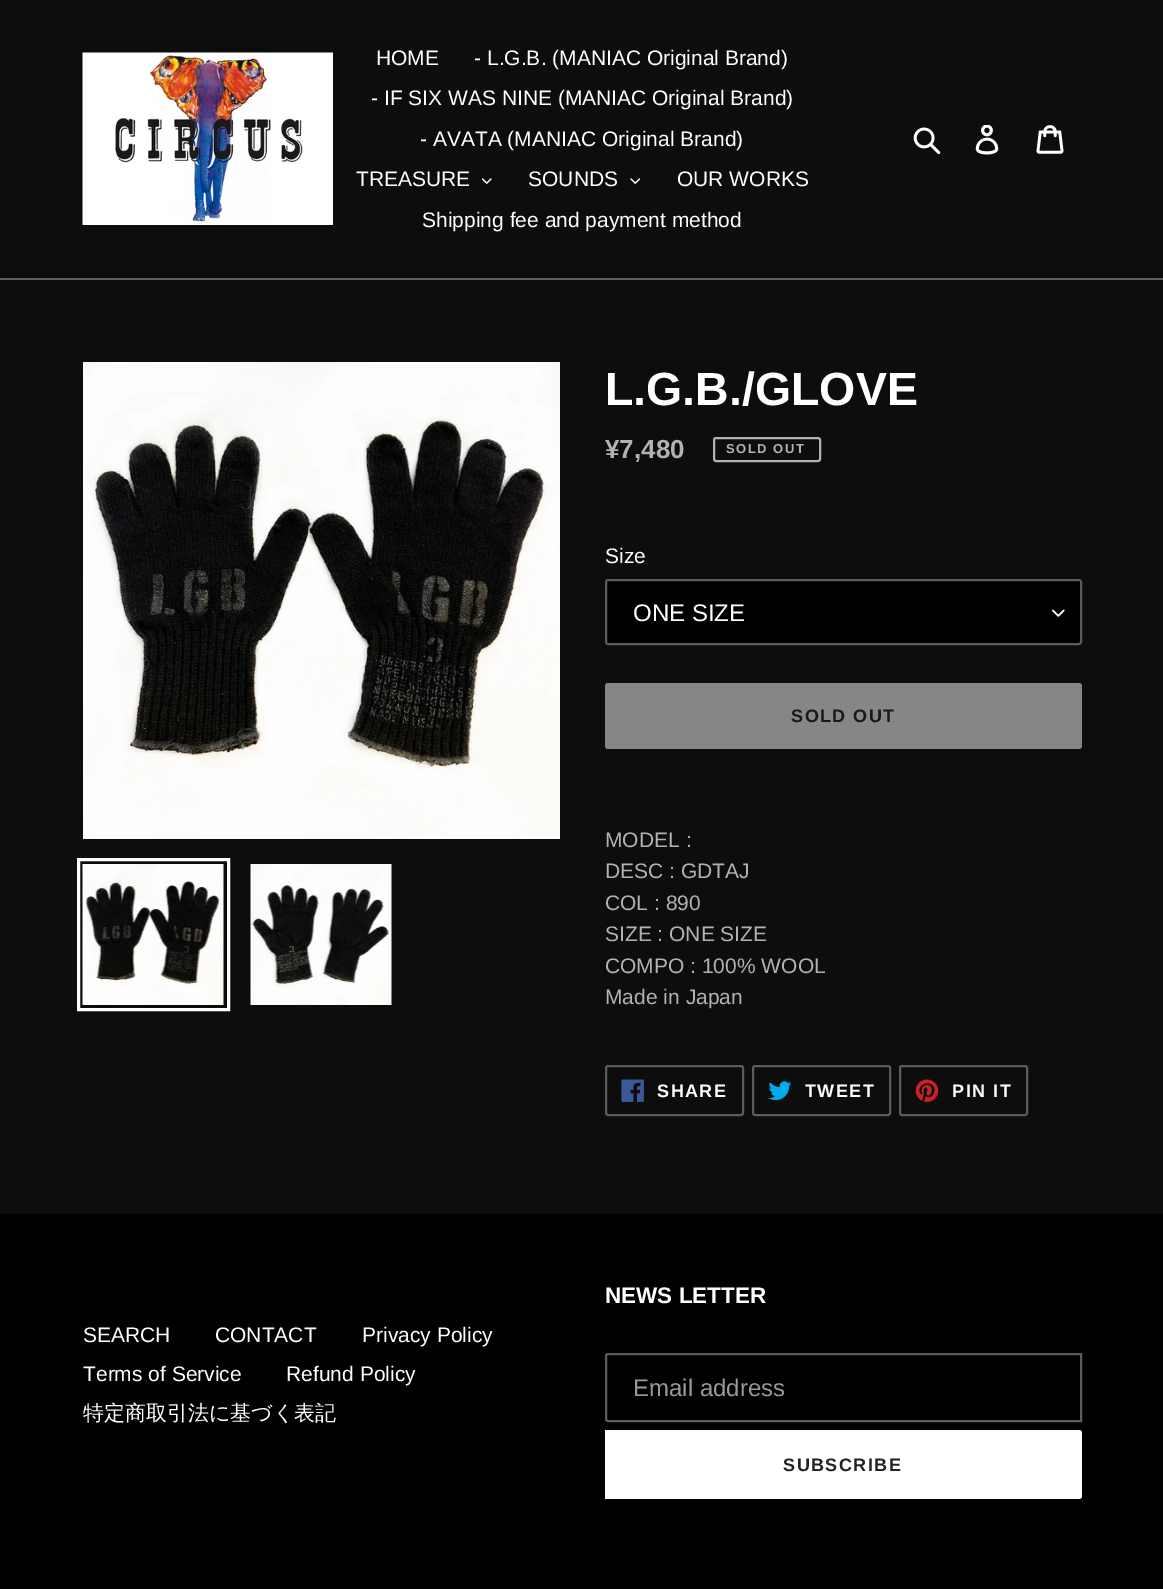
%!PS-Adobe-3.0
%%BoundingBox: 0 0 1163 1589
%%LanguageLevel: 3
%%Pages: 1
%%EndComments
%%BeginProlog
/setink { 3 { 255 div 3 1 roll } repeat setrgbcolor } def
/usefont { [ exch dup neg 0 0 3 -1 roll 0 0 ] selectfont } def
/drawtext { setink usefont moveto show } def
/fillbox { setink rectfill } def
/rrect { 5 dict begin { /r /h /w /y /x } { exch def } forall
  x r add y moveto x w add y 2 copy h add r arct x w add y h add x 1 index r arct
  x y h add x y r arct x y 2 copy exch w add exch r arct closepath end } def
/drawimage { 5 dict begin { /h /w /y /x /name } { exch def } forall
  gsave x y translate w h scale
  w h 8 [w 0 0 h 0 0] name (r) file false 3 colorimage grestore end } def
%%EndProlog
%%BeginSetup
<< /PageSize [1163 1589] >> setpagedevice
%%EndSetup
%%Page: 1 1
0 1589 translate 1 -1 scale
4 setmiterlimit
0 0 1163 1589 13 13 13 fillbox
0 278 1163 2 92 92 92 fillbox
(assets/img1.rgb) 82 52 251 173 drawimage
(HOME) 376 65 /LiberationSans-Regular 21 255 255 255 drawtext
(- L.G.B. \(MANIAC Original Brand\)) 474 65 /LiberationSans-Regular 21 255 255 255 drawtext
(- IF SIX WAS NINE \(MANIAC Original Brand\)) 371 105 /LiberationSans-Regular 21 255 255 255 drawtext
(- AVATA \(MANIAC Original Brand\)) 420 146 /LiberationSans-Regular 21 255 255 255 drawtext
(TREASURE) 356 186 /LiberationSans-Regular 21 255 255 255 drawtext
(assets/img2.rgb) 482 178 10 6 drawimage
(SOUNDS) 528 186 /LiberationSans-Regular 21 255 255 255 drawtext
(assets/img3.rgb) 630 178 11 6 drawimage
(OUR WORKS) 677 186 /LiberationSans-Regular 21 255 255 255 drawtext
(Shipping fee and payment method) 422 227 /LiberationSans-Regular 21 255 255 255 drawtext
(assets/img4.rgb) 913 127 28 28 drawimage
(assets/img5.rgb) 975 125 24 30 drawimage
(assets/img6.rgb) 1036 125 28 29 drawimage
(assets/img7.rgb) 83 362 477 477 drawimage
3 setlinewidth
78.5 859.5 150 150 rectstroke
(assets/img8.rgb) 82 864 142 141 drawimage
(assets/img9.rgb) 250 864 142 141 drawimage
(L.G.B./GLOVE) 605 405 /LiberationSans-Bold 46.5 255 255 255 drawtext
(¥7,480) 605 458 /LiberationSans-Bold 26 182 176 176 drawtext
2 setlinewidth
714 438 106 23 2 rrect stroke
/LiberationSans-Bold 13 usefont
726 453 moveto 1.5 0 (SOLD OUT) ashow
(Size) 605 563 /LiberationSans-Regular 21 255 255 255 drawtext
0 0 0 setink
605 579 477 66 3 rrect fill
(assets/img10.rgb) 1052 609 13 8 drawimage
92 92 92 setink
606 580 475 64 2 rrect stroke
(ONE SIZE) 633 621 /LiberationSans-Regular 24 255 255 255 drawtext
134 134 134 setink
605 683 477 66 3 rrect fill
/LiberationSans-Bold 18 usefont
24 24 24 setink
791 722 moveto 1.5 0 (SOLD OUT) ashow
(MODEL :) 605 847 /LiberationSans-Regular 21 182 176 176 drawtext
(DESC : GDTAJ) 605 878 /LiberationSans-Regular 21 182 176 176 drawtext
(COL : 890) 605 910 /LiberationSans-Regular 21 182 176 176 drawtext
(SIZE : ONE SIZE) 605 941 /LiberationSans-Regular 21 182 176 176 drawtext
(COMPO : 100% WOOL) 605 973 /LiberationSans-Regular 21 182 176 176 drawtext
(Made in Japan) 605 1004 /LiberationSans-Regular 21 182 176 176 drawtext
92 92 92 setink
606 1066 137 49 2 rrect stroke
(assets/img11.rgb) 621 1079 23 23 drawimage
/LiberationSans-Bold 18 usefont
255 255 255 setink
657 1097 moveto 1.5 0 (SHARE) ashow
92 92 92 setink
753 1066 137 49 2 rrect stroke
(assets/img12.rgb) 768 1081 24 20 drawimage
255 255 255 setink
805 1097 moveto 1.5 0 (TWEET) ashow
92 92 92 setink
900 1066 127 49 2 rrect stroke
(assets/img13.rgb) 915 1079 24 23 drawimage
255 255 255 setink
952 1097 moveto 1.5 0 (PIN IT) ashow
0 1214 1163 375 0 0 0 fillbox
(SEARCH) 83 1342 /LiberationSans-Regular 21 255 255 255 drawtext
(CONTACT) 215 1342 /LiberationSans-Regular 21 255 255 255 drawtext
(Privacy Policy) 362 1342 /LiberationSans-Regular 21 255 255 255 drawtext
(Terms of Service) 83 1381 /LiberationSans-Regular 21 255 255 255 drawtext
(Refund Policy) 286 1381 /LiberationSans-Regular 21 255 255 255 drawtext
(特定商取引法に基づく表記) 83 1420 /WenQuanYiZenHei-Medium 21 255 255 255 drawtext
(NEWS LETTER) 605 1303 /LiberationSans-Bold 22.5 255 255 255 drawtext
92 92 92 setink
608 1354 moveto 1081 1354 lineto 1081 1421 lineto 608 1421 lineto 607 1421 606 1420 606 1419 curveto 606 1356 lineto 606 1355 607 1354 608 1354 curveto closepath stroke
(Email address) 633 1396 /LiberationSans-Regular 24 153 153 153 drawtext
255 255 255 setink
605 1430 moveto 1079 1430 lineto 1080.5 1430 1082 1431.5 1082 1433 curveto 1082 1496 lineto 1082 1497.5 1080.5 1499 1079 1499 curveto 605 1499 lineto closepath fill
/LiberationSans-Bold 18 usefont
35 35 35 setink
783 1471 moveto 1.5 0 (SUBSCRIBE) ashow
showpage
%%EOF
